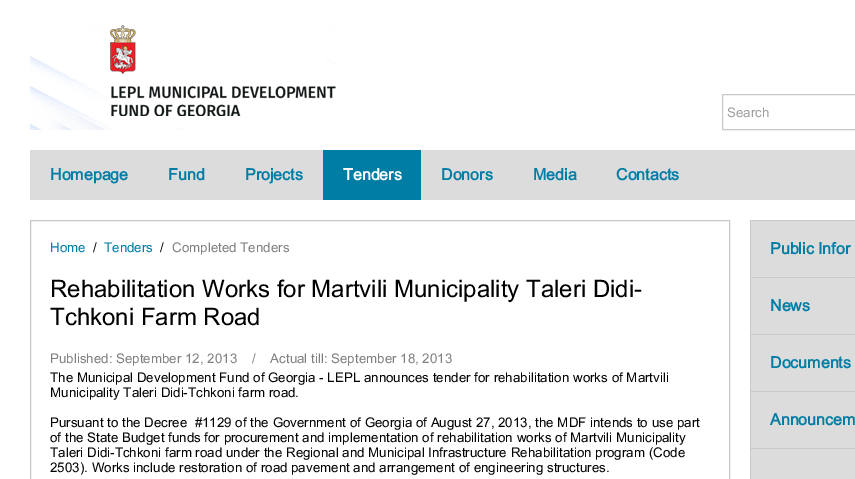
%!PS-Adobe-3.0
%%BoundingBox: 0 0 855 479
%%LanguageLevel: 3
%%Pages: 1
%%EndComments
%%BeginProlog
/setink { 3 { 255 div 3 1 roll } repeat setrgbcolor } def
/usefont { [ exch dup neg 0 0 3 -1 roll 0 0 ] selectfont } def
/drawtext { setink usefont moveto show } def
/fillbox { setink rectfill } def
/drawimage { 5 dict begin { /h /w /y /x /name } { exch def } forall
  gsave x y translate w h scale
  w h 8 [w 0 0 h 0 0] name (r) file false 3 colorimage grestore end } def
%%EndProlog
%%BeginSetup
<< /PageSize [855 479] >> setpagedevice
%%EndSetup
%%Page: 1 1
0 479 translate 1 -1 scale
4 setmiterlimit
0 0 855 479 255 255 255 fillbox
(assets/img1.rgb) 30 25 306 105 drawimage
200 200 200 setink
722.5 94.5 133 35 rectstroke
(Search) 727 117 /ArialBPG-Regular 13.35 160 160 160 drawtext
30 150 825 50 220 220 220 fillbox
(Homepage) 50 180 /ArialBPG-Bold 16 0 125 165 drawtext
(Fund) 168 180 /ArialBPG-Bold 16 0 125 165 drawtext
(Projects) 245 180 /ArialBPG-Bold 16 0 125 165 drawtext
323 150 98 50 0 125 165 fillbox
(Tenders) 343 180 /ArialBPG-Bold 16 255 255 255 drawtext
(Donors) 441 180 /ArialBPG-Bold 16 0 125 165 drawtext
(Media) 533 180 /ArialBPG-Bold 16 0 125 165 drawtext
(Contacts) 616 180 /ArialBPG-Bold 16 0 125 165 drawtext
200 200 200 setink
30.5 220.5 699 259 rectstroke
(Home) 50 252 /ArialBPG-Regular 13.35 0 125 165 drawtext
(/) 93 252 /ArialBPG-Regular 13.35 0 0 0 drawtext
(Tenders) 104 252 /ArialBPG-Regular 13.35 0 125 165 drawtext
(/) 160 252 /ArialBPG-Regular 13.35 0 0 0 drawtext
(Completed Tenders) 172 252 /ArialBPG-Regular 13.35 128 128 128 drawtext
(Rehabilitation Works for Martvili Municipality Taleri Didi-) 50 297 /ArialBPG-Regular 24 0 0 0 drawtext
(Tchkoni Farm Road) 50 325 /ArialBPG-Regular 24 0 0 0 drawtext
(Published: September 12, 2013    /    Actual till: September 18, 2013) 50 363 /ArialBPG-Regular 13.35 128 128 128 drawtext
(The Municipal Development Fund of Georgia - LEPL announces tender for rehabilitation works of Martvili) 50 382 /ArialBPG-Regular 13.35 0 0 0 drawtext
(Municipality Taleri Didi-Tchkoni farm road.) 50 397 /ArialBPG-Regular 13.35 0 0 0 drawtext
(Pursuant to the Decree  #1129 of the Government of Georgia of August 27, 2013, the MDF intends to use part) 50 427 /ArialBPG-Regular 13.35 0 0 0 drawtext
(of the State Budget funds for procurement and implementation of rehabilitation works of Martvili Municipality) 50 442 /ArialBPG-Regular 13.35 0 0 0 drawtext
(Taleri Didi-Tchkoni farm road under the Regional and Municipal Infrastructure Rehabilitation program \(Code) 50 457 /ArialBPG-Regular 13.35 0 0 0 drawtext
(2503\). Works include restoration of road pavement and arrangement of engineering structures.) 50 472 /ArialBPG-Regular 13.35 0 0 0 drawtext
200 200 200 setink
750.5 220.5 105 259 rectstroke
751 221 104 258 220 220 220 fillbox
(Public Infor) 770 254 /ArialBPG-Bold 16 0 125 165 drawtext
751 277 104 1 200 200 200 fillbox
(News) 770 311 /ArialBPG-Bold 16 0 125 165 drawtext
751 334 104 1 200 200 200 fillbox
(Documents) 770 368 /ArialBPG-Bold 16 0 125 165 drawtext
751 391 104 1 200 200 200 fillbox
(Announcem) 770 425 /ArialBPG-Bold 16 0 125 165 drawtext
751 448 104 1 200 200 200 fillbox
showpage
%%EOF
